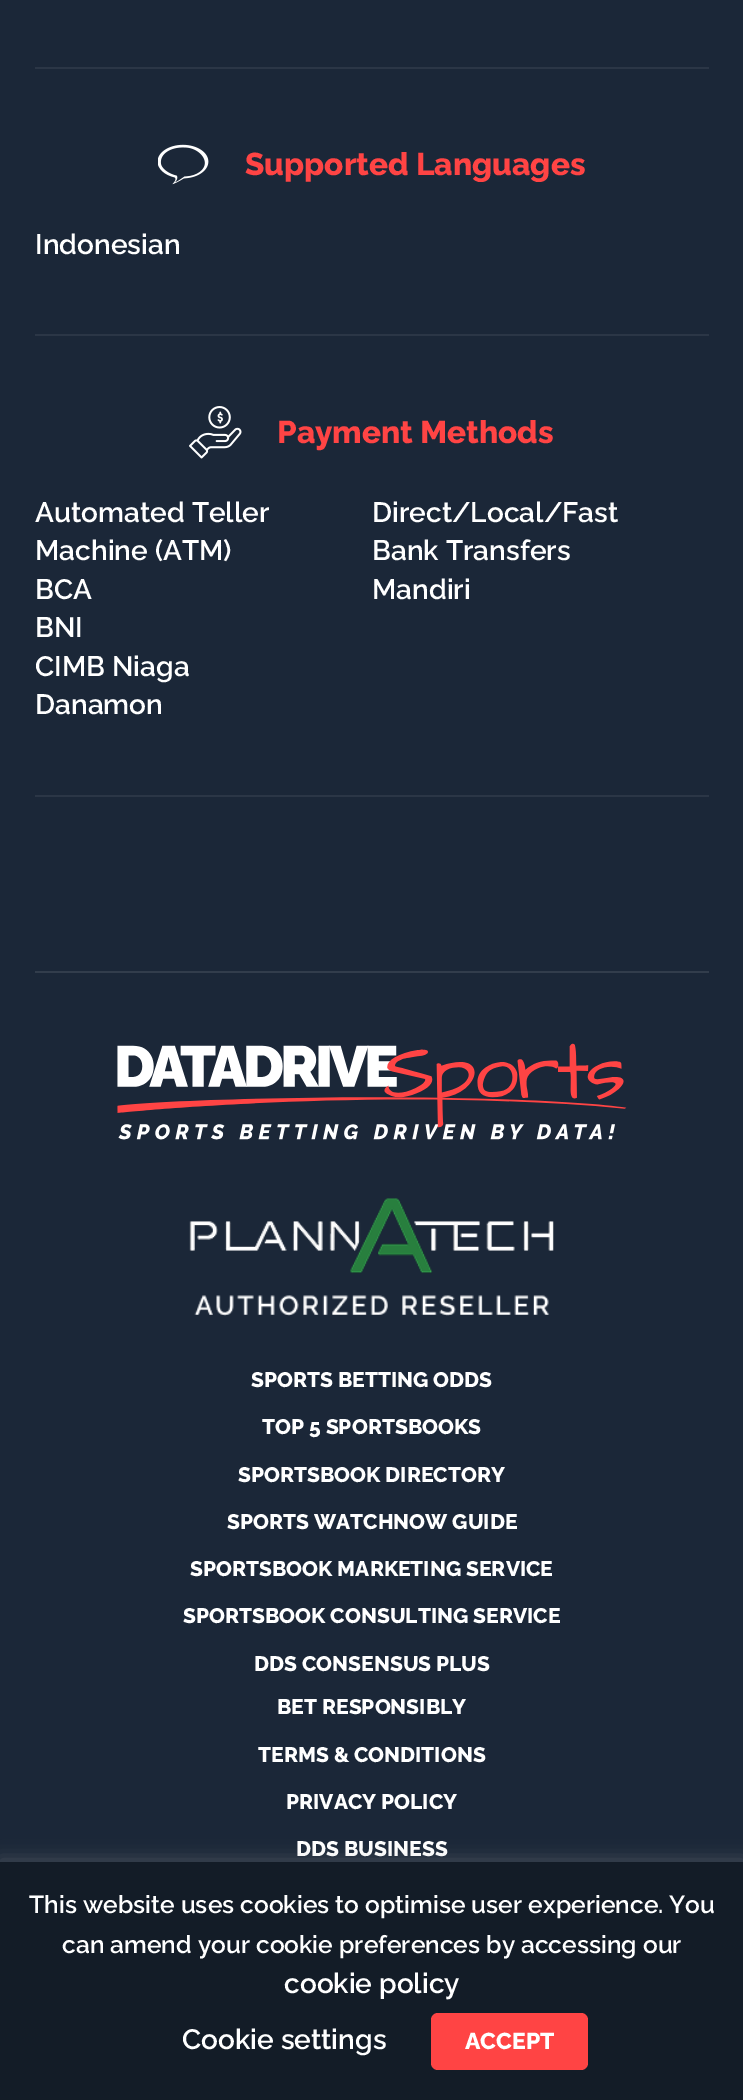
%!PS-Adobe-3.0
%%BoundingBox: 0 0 743 2100
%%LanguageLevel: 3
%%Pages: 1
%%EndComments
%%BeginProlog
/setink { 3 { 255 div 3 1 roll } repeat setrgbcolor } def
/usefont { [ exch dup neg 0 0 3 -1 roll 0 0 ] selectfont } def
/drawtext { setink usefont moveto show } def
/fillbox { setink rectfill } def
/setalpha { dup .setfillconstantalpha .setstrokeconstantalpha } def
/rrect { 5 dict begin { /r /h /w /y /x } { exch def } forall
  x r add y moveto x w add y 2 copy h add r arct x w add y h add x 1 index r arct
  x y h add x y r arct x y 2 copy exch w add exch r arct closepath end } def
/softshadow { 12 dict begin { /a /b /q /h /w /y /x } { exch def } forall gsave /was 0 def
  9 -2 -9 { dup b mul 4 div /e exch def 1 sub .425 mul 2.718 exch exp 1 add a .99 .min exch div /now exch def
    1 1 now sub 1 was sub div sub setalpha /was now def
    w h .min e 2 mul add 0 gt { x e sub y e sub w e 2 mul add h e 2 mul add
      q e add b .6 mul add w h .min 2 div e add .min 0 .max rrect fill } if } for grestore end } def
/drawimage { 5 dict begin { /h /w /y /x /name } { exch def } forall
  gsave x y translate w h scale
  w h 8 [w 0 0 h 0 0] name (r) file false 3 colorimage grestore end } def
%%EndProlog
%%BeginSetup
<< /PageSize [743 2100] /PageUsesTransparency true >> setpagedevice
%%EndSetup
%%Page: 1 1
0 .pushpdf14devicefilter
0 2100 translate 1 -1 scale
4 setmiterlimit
0 0 743 2100 27 39 56 fillbox
35 67 674 2 43 54 70 fillbox
35 334 674 2 43 54 70 fillbox
(assets/img1.rgb) 158 144 51 41 drawimage
(Supported Languages) 245 175 /Raleway-ExtraBold 31.5 255 68 68 drawtext
(Indonesian) 35 254 /Raleway-SemiBold 28 255 255 255 drawtext
35 795 674 2 43 54 70 fillbox
(assets/img2.rgb) 189 406 53 53 drawimage
(Payment Methods) 277 443 /Raleway-ExtraBold 31.5 255 68 68 drawtext
(Automated Teller) 35 522 /Raleway-SemiBold 28 255 255 255 drawtext
(Machine \(ATM\)) 35 560 /Raleway-SemiBold 28 255 255 255 drawtext
(BCA) 35 599 /Raleway-SemiBold 28 255 255 255 drawtext
(BNI) 35 637 /Raleway-SemiBold 28 255 255 255 drawtext
(CIMB Niaga) 35 676 /Raleway-SemiBold 28 255 255 255 drawtext
(Danamon) 35 714 /Raleway-SemiBold 28 255 255 255 drawtext
(Direct/Local/Fast) 372 522 /Raleway-SemiBold 28 255 255 255 drawtext
(Bank Transfers) 372 560 /Raleway-SemiBold 28 255 255 255 drawtext
(Mandiri) 372 599 /Raleway-SemiBold 28 255 255 255 drawtext
35 971 674 2 50 61 76 fillbox
(assets/img3.rgb) 117 1043 510 97 drawimage
(assets/img4.rgb) 189 1198 365 118 drawimage
(SPORTS BETTING ODDS) 251 1387 /Raleway-ExtraBold 21 255 255 255 drawtext
(TOP 5 SPORTSBOOKS) 262 1434 /Raleway-ExtraBold 21 255 255 255 drawtext
(SPORTSBOOK DIRECTORY) 238 1482 /Raleway-ExtraBold 21 255 255 255 drawtext
(SPORTS WATCHNOW GUIDE) 227 1529 /Raleway-ExtraBold 21 255 255 255 drawtext
(SPORTSBOOK MARKETING SERVICE) 190 1576 /Raleway-ExtraBold 21 255 255 255 drawtext
(SPORTSBOOK CONSULTING SERVICE) 183 1623 /Raleway-ExtraBold 21 255 255 255 drawtext
(DDS CONSENSUS PLUS) 254 1671 /Raleway-ExtraBold 21 255 255 255 drawtext
(BET RESPONSIBLY) 277 1714 /Raleway-ExtraBold 21 255 255 255 drawtext
(TERMS & CONDITIONS) 258 1762 /Raleway-ExtraBold 21 255 255 255 drawtext
(PRIVACY POLICY) 286 1809 /Raleway-ExtraBold 21 255 255 255 drawtext
(DDS BUSINESS) 296 1856 /Raleway-ExtraBold 21 255 255 255 drawtext
172 171 171 setink
0 1860 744 238 0 9 0.3 softshadow
0 1862 743 238 19 28 39 fillbox
(This website uses cookies to optimise user experience. You) 29 1913 /Raleway-SemiBold 24.5 255 255 255 drawtext
(can amend your cookie preferences by accessing our) 62 1953 /Raleway-SemiBold 24.5 255 255 255 drawtext
(cookie policy) 284 1993 /Raleway-SemiBold 28 255 255 255 drawtext
(Cookie settings) 182 2049 /Raleway-SemiBold 28 255 255 255 drawtext
255 68 68 setink
431 2013 157 57 7 rrect fill
(ACCEPT) 465 2049 /Raleway-ExtraBold 23 255 255 255 drawtext
.poppdf14devicefilter showpage
%%EOF
